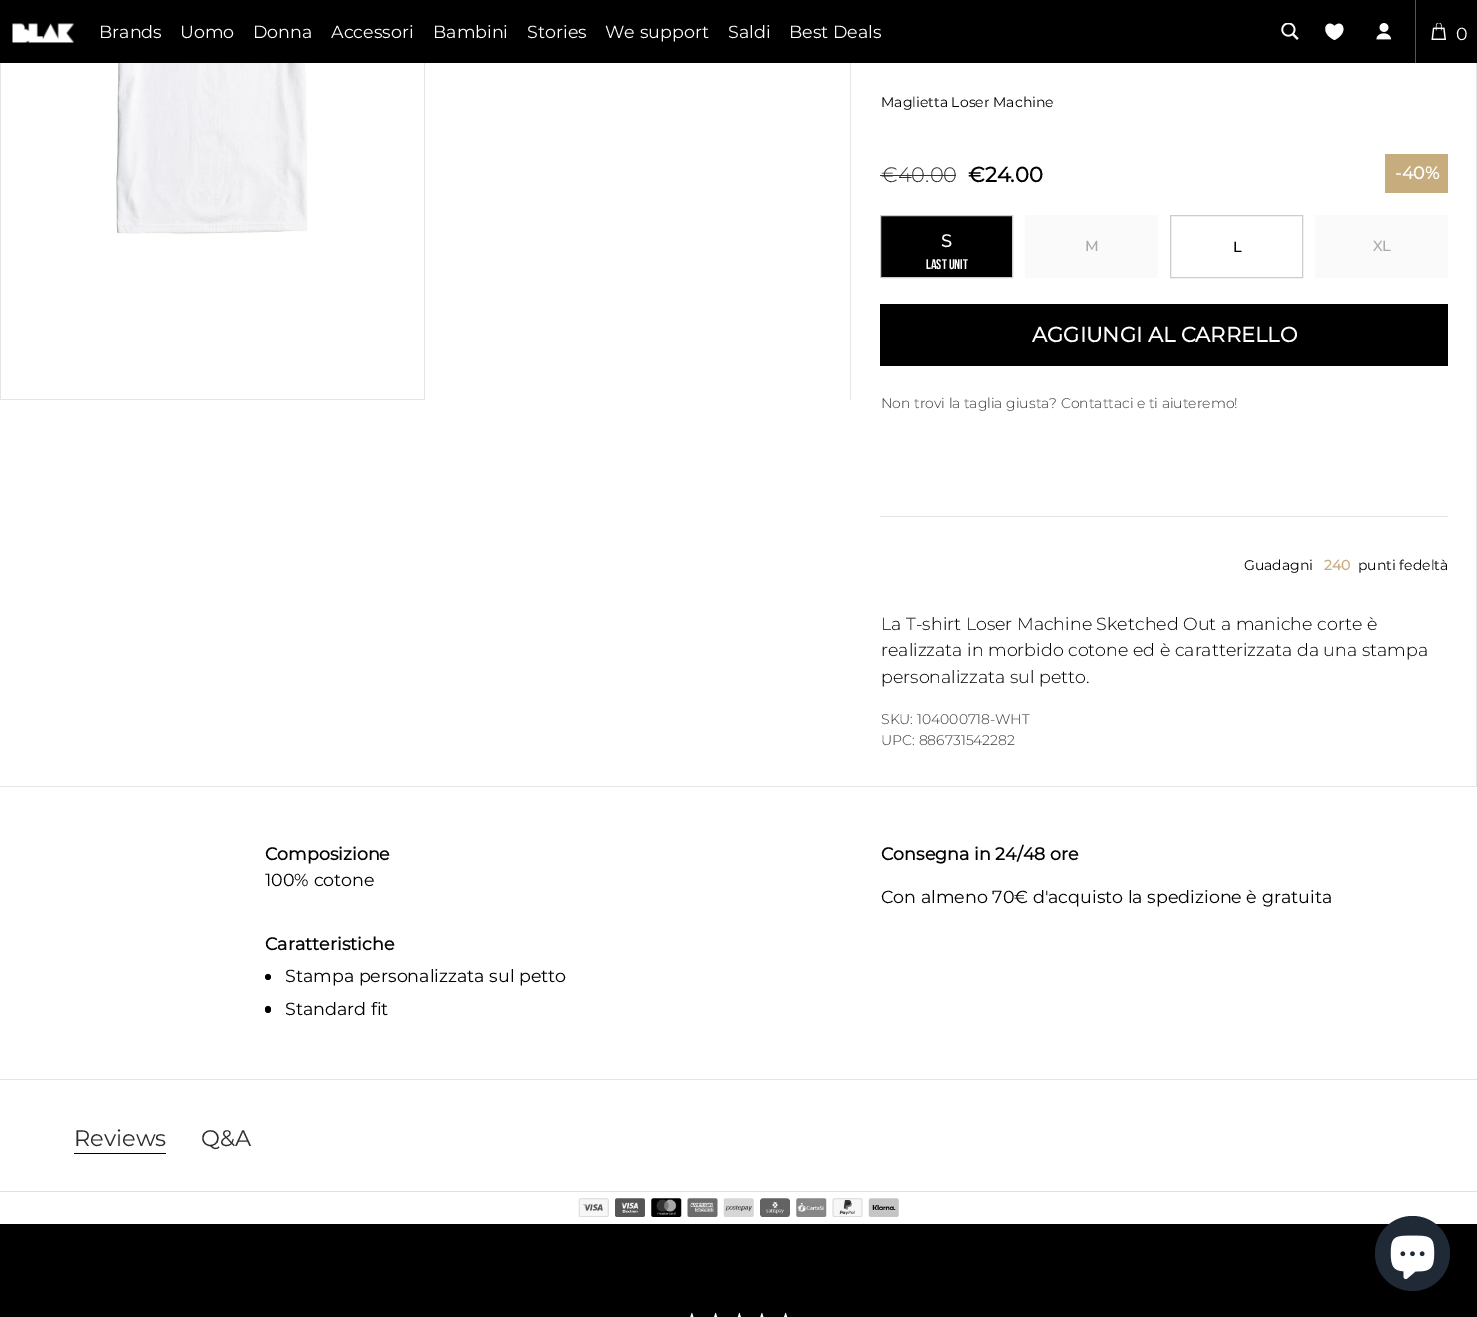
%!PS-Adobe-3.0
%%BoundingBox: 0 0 1477 1317
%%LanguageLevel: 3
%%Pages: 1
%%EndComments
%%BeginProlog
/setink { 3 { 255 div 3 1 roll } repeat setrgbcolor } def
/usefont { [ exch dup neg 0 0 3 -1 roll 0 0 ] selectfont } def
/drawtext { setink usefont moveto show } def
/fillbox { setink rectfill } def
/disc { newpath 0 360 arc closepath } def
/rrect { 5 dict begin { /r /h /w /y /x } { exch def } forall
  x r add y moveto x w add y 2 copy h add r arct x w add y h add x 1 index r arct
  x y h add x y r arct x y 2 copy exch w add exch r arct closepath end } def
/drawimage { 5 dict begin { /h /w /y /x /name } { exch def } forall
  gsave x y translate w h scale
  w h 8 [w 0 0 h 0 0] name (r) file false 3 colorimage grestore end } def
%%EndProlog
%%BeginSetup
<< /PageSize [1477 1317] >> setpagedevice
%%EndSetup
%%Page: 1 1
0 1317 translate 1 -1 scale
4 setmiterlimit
0 0 1477 1317 255 255 255 fillbox
0 0 1477 63 0 0 0 fillbox
(assets/img1.rgb) 12 23 62 20 drawimage
(Brands) 99 38 /Montserrat-Thin 17.5 255 255 255 drawtext
(Uomo) 180 38 /Montserrat-Thin 17.5 255 255 255 drawtext
(Donna) 253 38 /Montserrat-Thin 17.5 255 255 255 drawtext
(Accessori) 331 38 /Montserrat-Thin 17.5 255 255 255 drawtext
(Bambini) 433 38 /Montserrat-Thin 17.5 255 255 255 drawtext
(Stories) 527 38 /Montserrat-Thin 17.5 255 255 255 drawtext
(We support) 605 38 /Montserrat-Thin 17.5 255 255 255 drawtext
(Saldi) 728 38 /Montserrat-Thin 17.5 255 255 255 drawtext
(Best Deals) 789 38 /Montserrat-Thin 17.5 255 255 255 drawtext
(assets/img2.rgb) 1281 23 18 17 drawimage
1334.5 40 moveto 1318.5 32.5 1326.5 18 1334.5 26 curveto 1342 18 1350 32.5 1334.5 40 curveto closepath fill
(assets/img3.rgb) 1376 23 16 17 drawimage
1415 0 1 63 85 85 85 fillbox
(assets/img4.rgb) 1431 23 15 17 drawimage
(0) 1456 40 /Montserrat-Thin 17.5 255 255 255 drawtext
850 63 1 337 229 229 229 fillbox
0 63 1 337 229 229 229 fillbox
424 63 1 337 229 229 229 fillbox
1 399 424 1 229 229 229 fillbox
(assets/img5.rgb) 49 63 321 172 drawimage
1476 63 1 726 229 229 229 fillbox
(Maglietta Loser Machine) 881 107 /Montserrat-Thin 14 0 0 0 drawtext
(€40.00) 881 182 /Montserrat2-Thin 21 51 51 51 drawtext
880 175 76 1 51 51 51 fillbox
(€24.00) 968 182 /Montserrat-Bold 21 0 0 0 drawtext
1385 154 63 39 199 172 126 fillbox
(-40%) 1395 179 /Montserrat-Bold 17.5 255 255 255 drawtext
0 0 0 setink
880.5 215.5 moveto 1012.5 215.5 lineto 1012.5 277.5 lineto 880.5 277.5 lineto closepath gsave fill grestore
204 204 204 setink
stroke
(S) 941 247 /Montserrat-Bold 17.5 255 255 255 drawtext
(LAST UNIT) 926 269 /BebasNeue-Bold 14 255 255 255 drawtext
1025 215 133 63 250 250 250 fillbox
(M) 1085 251 /Montserrat-Bold 14 170 170 170 drawtext
204 204 204 setink
1170.5 215.5 132 62 rectstroke
(L) 1233 252 /Montserrat-Bold 14 0 0 0 drawtext
1315 215 133 63 250 250 250 fillbox
(XL) 1373 251 /Montserrat-Bold 14 170 170 170 drawtext
880 304 568 62 0 0 0 fillbox
(AGGIUNGI AL CARRELLO) 1032 342 /Montserrat-Bold 21 255 255 255 drawtext
(Non trovi la taglia giusta? Contattaci e ti aiuteremo!) 881 408 /Montserrat2-Thin 14 51 51 51 drawtext
880 516 568 1 229 229 229 fillbox
(Guadagni) 1244 570 /Montserrat-Thin 14 0 0 0 drawtext
(240) 1324 570 /Montserrat-Bold 14 199 172 126 drawtext
(punti fedeltà) 1358 570 /Montserrat-Thin 14 0 0 0 drawtext
(La T-shirt Loser Machine Sketched Out a maniche corte è) 881 630 /Montserrat2-Thin 17.5 0 0 0 drawtext
(realizzata in morbido cotone ed è caratterizzata da una stampa) 881 656 /Montserrat2-Thin 17.5 0 0 0 drawtext
(personalizzata sul petto.) 881 683 /Montserrat2-Thin 17.5 0 0 0 drawtext
(SKU: 104000718-WHT) 881 724 /Montserrat2-Thin 14 51 51 51 drawtext
(UPC: 886731542282) 881 745 /Montserrat2-Thin 14 51 51 51 drawtext
1476 787 1 2 255 255 255 fillbox
0 786 1477 1 229 229 229 fillbox
(Composizione) 265 860 /Montserrat-Bold 17.5 0 0 0 drawtext
(100% cotone) 265 886 /Montserrat-Thin 17.5 0 0 0 drawtext
(Caratteristiche) 265 950 /Montserrat-Bold 17.5 0 0 0 drawtext
268 977 3 disc fill
(Stampa personalizzata sul petto) 285 982 /Montserrat-Thin 17.5 0 0 0 drawtext
265 1006 6 7 3 rrect fill
(Standard fit) 285 1015 /Montserrat-Thin 17.5 0 0 0 drawtext
(Consegna in 24/48 ore) 881 860 /Montserrat-Bold 17.5 0 0 0 drawtext
(Con almeno 70€ d'acquisto la spedizione è gratuita) 881 903 /Montserrat-Thin 17.5 0 0 0 drawtext
0 1079 1477 1 229 229 229 fillbox
74 1153 92 1 0 0 0 fillbox
(Reviews) 74 1146 /Montserrat-Thin 22.5 44 44 44 drawtext
(Q&A) 201 1146 /Montserrat-Thin 22.5 44 44 44 drawtext
0 1191 1477 1 225 225 225 fillbox
(assets/img6.rgb) 578 1198 31 19 drawimage
(assets/img7.rgb) 615 1198 30 19 drawimage
(assets/img8.rgb) 651 1198 31 19 drawimage
(assets/img9.rgb) 687 1198 31 19 drawimage
(assets/img10.rgb) 723 1198 31 19 drawimage
(assets/img11.rgb) 760 1198 30 19 drawimage
(assets/img12.rgb) 796 1198 31 19 drawimage
(assets/img13.rgb) 832 1198 31 19 drawimage
(assets/img14.rgb) 868 1198 31 19 drawimage
0 1224 1477 93 0 0 0 fillbox
(assets/img15.rgb) 690 1312 4 5 drawimage
(assets/img16.rgb) 714 1312 4 5 drawimage
(assets/img17.rgb) 737 1312 4 5 drawimage
(assets/img15.rgb) 760 1312 4 5 drawimage
(assets/img16.rgb) 784 1312 4 5 drawimage
32 42 54 setink
1412.5 1253.5 37.5 disc fill
(assets/img18.rgb) 1390 1235 45 45 drawimage
showpage
%%EOF
